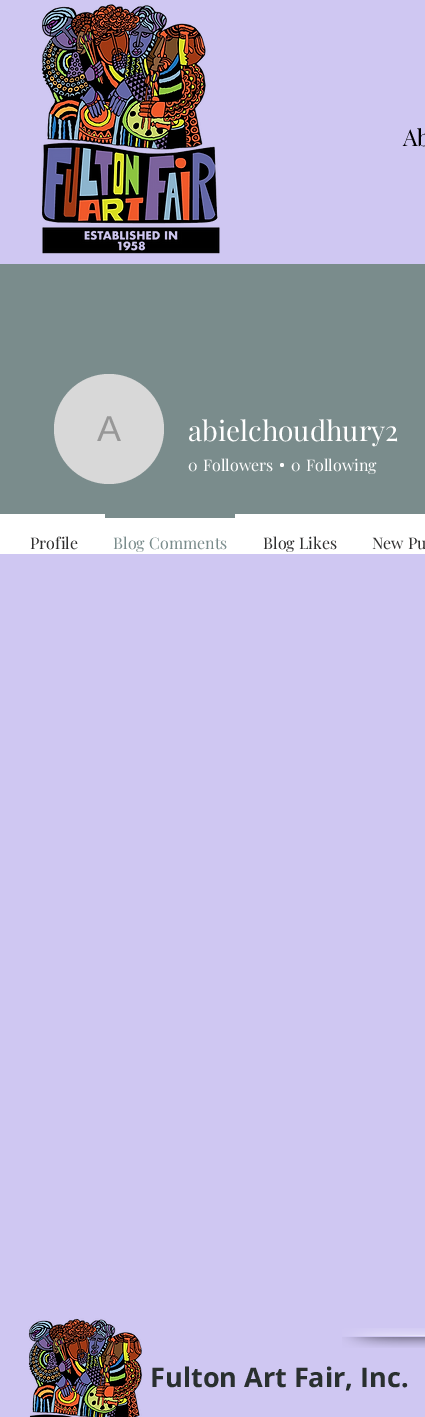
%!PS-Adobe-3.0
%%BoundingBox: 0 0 425 1417
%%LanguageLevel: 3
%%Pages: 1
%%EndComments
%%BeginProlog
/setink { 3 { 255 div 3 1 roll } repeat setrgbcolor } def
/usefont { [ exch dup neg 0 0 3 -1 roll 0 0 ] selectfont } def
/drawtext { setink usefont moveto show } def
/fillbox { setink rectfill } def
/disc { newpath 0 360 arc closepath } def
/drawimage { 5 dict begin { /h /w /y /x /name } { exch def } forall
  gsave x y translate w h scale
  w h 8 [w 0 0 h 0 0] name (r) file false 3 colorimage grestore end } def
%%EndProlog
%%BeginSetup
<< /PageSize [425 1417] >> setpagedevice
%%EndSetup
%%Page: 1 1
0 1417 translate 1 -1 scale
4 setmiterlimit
0 0 425 1417 207 199 242 fillbox
(assets/img1.rgb) 41 4 179 250 drawimage
(Ab) 403 146 /PlayfairDisplay-Regular 23 0 0 0 drawtext
0 264 425 250 122 140 140 fillbox
216 216 216 setink
109 429 55 disc fill
(A) 97 441 /LiberationSans-Regular 36 151 151 151 drawtext
(abielchoudhury2) 188 441 /PlayfairDisplay-Regular 28 255 255 255 drawtext
(0) 188 471 /PlayfairDisplay-Regular 16 255 255 255 drawtext
(Followers) 203 471 /PlayfairDisplay-Regular 16 255 255 255 drawtext
282 465 2 disc fill
(0) 291 471 /PlayfairDisplay-Regular 16 255 255 255 drawtext
(Following) 306 471 /PlayfairDisplay-Regular 16 255 255 255 drawtext
0 514 425 40 255 255 255 fillbox
(Profile) 30 549 /PlayfairDisplay-Regular 16 47 46 46 drawtext
105 514 130 4 122 140 140 fillbox
(Blog Comments) 113 549 /PlayfairDisplay-Regular 16 122 140 140 drawtext
(Blog Likes) 263 549 /PlayfairDisplay-Regular 16 47 46 46 drawtext
(New Pu) 372 549 /PlayfairDisplay-Regular 16 47 46 46 drawtext
(assets/img2.rgb) 28 1318 114 99 drawimage
(assets/img3.rgb) 342 1328 83 20 drawimage
(Fulton Art Fair, Inc.) 150 1387 /OpenSans-Bold 27 41 47 47 drawtext
showpage
%%EOF
